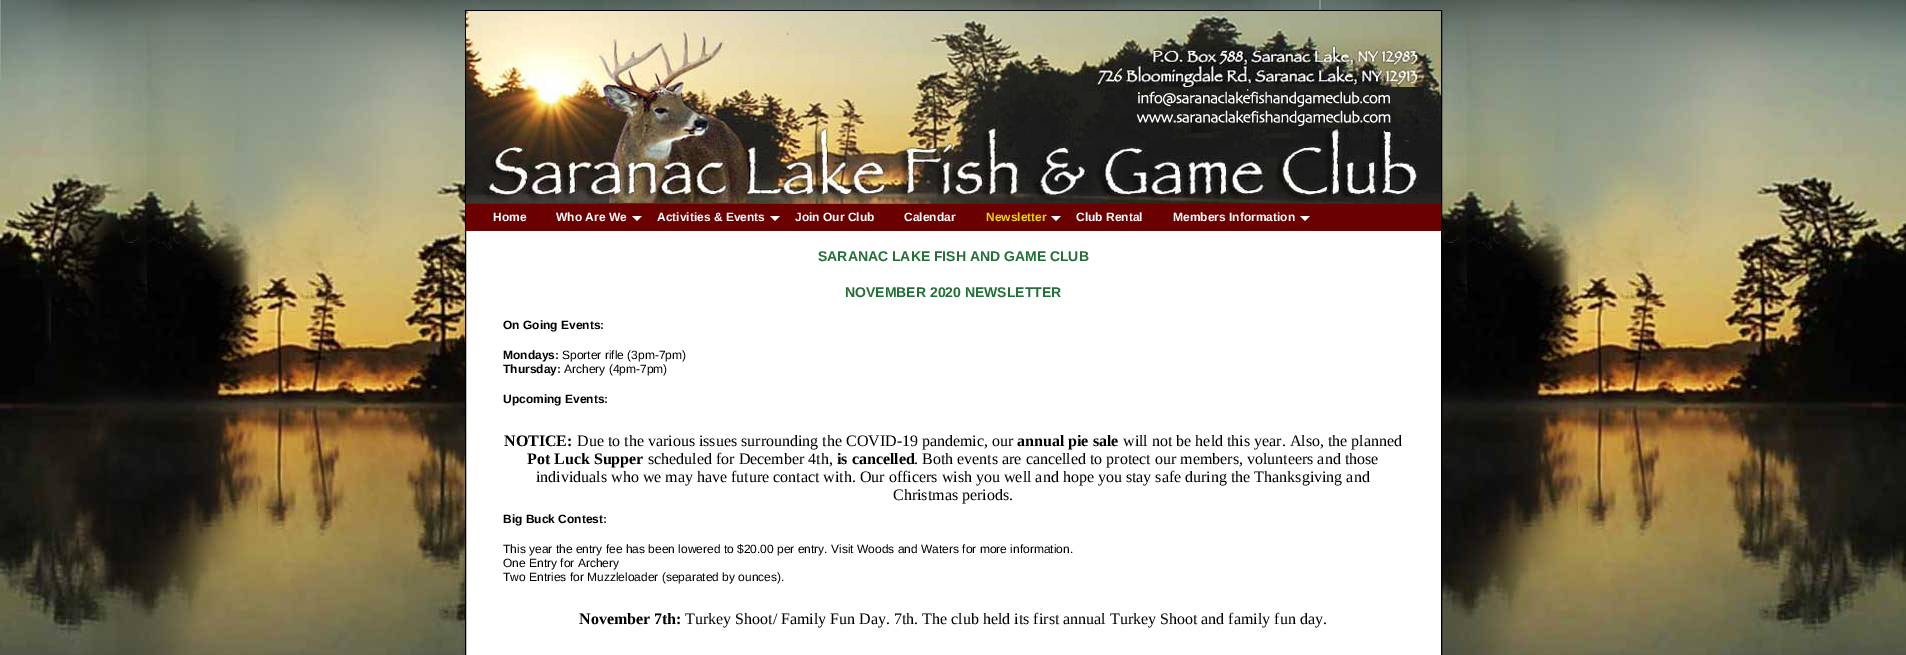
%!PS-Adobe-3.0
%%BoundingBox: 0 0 1906 655
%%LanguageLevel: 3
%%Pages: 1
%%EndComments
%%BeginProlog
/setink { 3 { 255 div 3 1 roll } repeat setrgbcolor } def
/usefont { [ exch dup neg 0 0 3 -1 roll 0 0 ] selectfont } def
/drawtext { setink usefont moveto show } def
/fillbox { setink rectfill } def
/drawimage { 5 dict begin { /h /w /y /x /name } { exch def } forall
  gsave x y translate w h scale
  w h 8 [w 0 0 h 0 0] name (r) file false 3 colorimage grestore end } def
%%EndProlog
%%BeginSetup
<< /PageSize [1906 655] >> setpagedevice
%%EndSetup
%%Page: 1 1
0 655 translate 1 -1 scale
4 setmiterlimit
0 0 1906 655 255 255 255 fillbox
(assets/img1.rgb) 0 0 1906 655 drawimage
466 231 975 424 255 255 255 fillbox
0 0 0 setink
465.5 10.5 976 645 rectstroke
(assets/img2.rgb) 466 11 975 193 drawimage
466 204 975 27 106 0 0 fillbox
478 230 832 1 103 9 9 fillbox
(Home) 493 221 /LiberationSans-Bold 12 255 255 255 drawtext
(Who Are We) 556 221 /LiberationSans-Bold 12 255 255 255 drawtext
632 216 moveto 642 216 lineto 637 221 lineto closepath fill
(Activities & Events) 657 221 /LiberationSans-Bold 12 255 255 255 drawtext
770 216 moveto 780 216 lineto 775 221 lineto closepath fill
(Join Our Club) 795 221 /LiberationSans-Bold 12 255 255 255 drawtext
(Calendar) 904 221 /LiberationSans-Bold 12 255 255 255 drawtext
(Newsletter) 986 221 /LiberationSans-Bold 12 231 217 0 drawtext
255 255 255 setink
1051 216 moveto 1061 216 lineto 1056 221 lineto closepath fill
(Club Rental) 1076 221 /LiberationSans-Bold 12 255 255 255 drawtext
(Members Information) 1173 221 /LiberationSans-Bold 12 255 255 255 drawtext
1300 216 moveto 1310 216 lineto 1305 221 lineto closepath fill
(SARANAC LAKE FISH AND GAME CLUB) 818 261 /LiberationSans-Bold 14 36 110 55 drawtext
(NOVEMBER 2020 NEWSLETTER) 845 297 /LiberationSans-Bold 14 36 110 55 drawtext
(On Going Events:) 503 329 /LiberationSans-Bold 12 0 0 0 drawtext
(Mondays:) 503 359 /LiberationSans-Bold 12 0 0 0 drawtext
(Sporter rifle \(3pm-7pm\)) 562 359 /LiberationSans-Regular 12 0 0 0 drawtext
(Thursday:) 503 373 /LiberationSans-Bold 12 0 0 0 drawtext
(Archery \(4pm-7pm\)) 564 373 /LiberationSans-Regular 12 0 0 0 drawtext
(Upcoming Events:) 503 403 /LiberationSans-Bold 12 0 0 0 drawtext
(NOTICE:) 504 446 /LiberationSerif-Bold 16 0 0 0 drawtext
(Due to the various issues surrounding the COVID-19 pandemic, our) 577 446 /LiberationSerif-Regular 16 0 0 0 drawtext
(annual pie sale) 1017 446 /LiberationSerif-Bold 16 0 0 0 drawtext
(will not be held this year. Also, the planned) 1123 446 /LiberationSerif-Regular 16 0 0 0 drawtext
(Pot Luck Supper) 527 464 /LiberationSerif-Bold 16 0 0 0 drawtext
(scheduled for December 4th,) 648 464 /LiberationSerif-Regular 16 0 0 0 drawtext
(is cancelled) 837 464 /LiberationSerif-Bold 16 0 0 0 drawtext
(. Both events are cancelled to protect our members, volunteers and those) 914 464 /LiberationSerif-Regular 16 0 0 0 drawtext
(individuals who we may have future contact with. Our officers wish you well and hope you stay safe during the Thanksgiving and) 536 482 /LiberationSerif-Regular 16 0 0 0 drawtext
(Christmas periods.) 893 500 /LiberationSerif-Regular 16 0 0 0 drawtext
(Big Buck Contest:) 503 523 /LiberationSans-Bold 12 0 0 0 drawtext
(This year the entry fee has been lowered to $20.00 per entry. Visit Woods and Waters for more information.) 503 553 /LiberationSans-Regular 12 0 0 0 drawtext
(One Entry for Archery) 503 567 /LiberationSans-Regular 12 0 0 0 drawtext
(Two Entries for Muzzleloader \(separated by ounces\).) 503 581 /LiberationSans-Regular 12 0 0 0 drawtext
(November 7th:) 579 624 /LiberationSerif-Bold 16 0 0 0 drawtext
(Turkey Shoot/ Family Fun Day. 7th. The club held its first annual Turkey Shoot and family fun day.) 685 624 /LiberationSerif-Regular 16 0 0 0 drawtext
showpage
%%EOF
